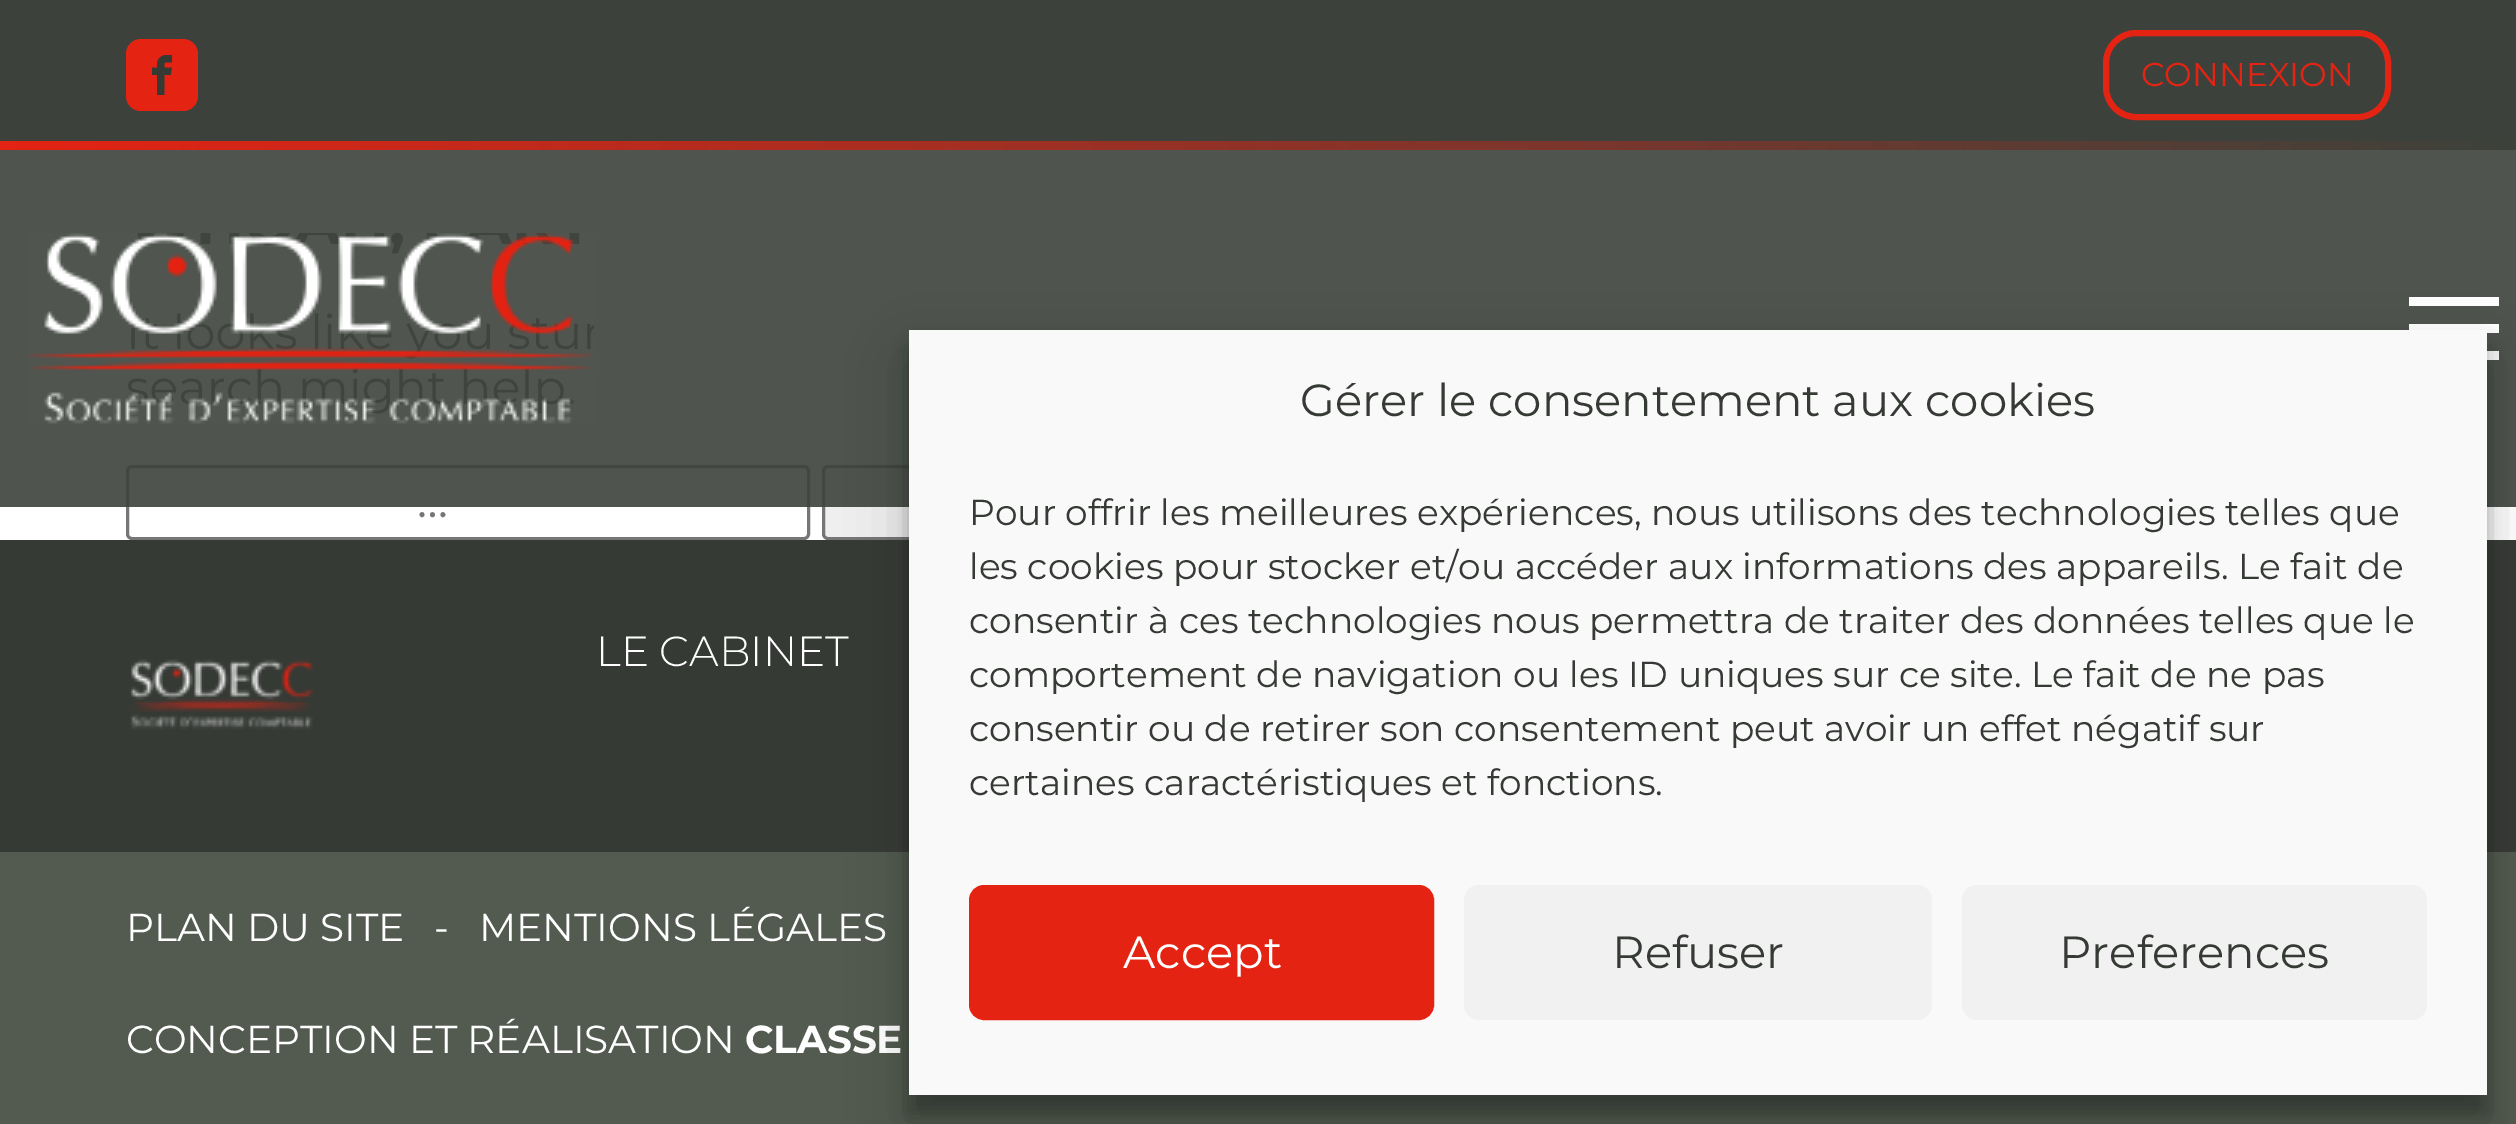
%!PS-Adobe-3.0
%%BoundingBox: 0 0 2516 1124
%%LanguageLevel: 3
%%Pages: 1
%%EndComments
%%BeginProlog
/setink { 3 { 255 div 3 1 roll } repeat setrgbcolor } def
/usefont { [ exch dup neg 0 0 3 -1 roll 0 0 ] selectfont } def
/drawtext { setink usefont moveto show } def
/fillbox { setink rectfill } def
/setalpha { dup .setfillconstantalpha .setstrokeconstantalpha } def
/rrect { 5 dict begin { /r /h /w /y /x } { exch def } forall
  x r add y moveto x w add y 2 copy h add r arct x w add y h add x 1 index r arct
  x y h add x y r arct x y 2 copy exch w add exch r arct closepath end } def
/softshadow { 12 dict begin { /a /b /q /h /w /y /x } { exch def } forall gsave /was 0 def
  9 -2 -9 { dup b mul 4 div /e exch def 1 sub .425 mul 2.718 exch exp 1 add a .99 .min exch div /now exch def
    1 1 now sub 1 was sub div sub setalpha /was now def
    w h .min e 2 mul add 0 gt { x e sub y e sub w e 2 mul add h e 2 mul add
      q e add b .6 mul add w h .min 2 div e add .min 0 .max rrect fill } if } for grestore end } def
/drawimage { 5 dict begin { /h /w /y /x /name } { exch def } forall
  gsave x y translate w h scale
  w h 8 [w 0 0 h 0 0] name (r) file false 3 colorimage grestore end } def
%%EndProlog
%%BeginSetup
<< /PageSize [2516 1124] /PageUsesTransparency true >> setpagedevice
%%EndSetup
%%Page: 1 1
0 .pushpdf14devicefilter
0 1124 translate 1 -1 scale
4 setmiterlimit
0 0 2516 1124 255 255 255 fillbox
0 0 2516 141 60 66 59 fillbox
228 35 19 setink
126 39 72 72 15 rrect fill
(assets/img1.rgb) 152 55 20 40 drawimage
6 setlinewidth
2106 33 282 84 30 rrect stroke
(CONNEXION) 2141 86 /Montserrat-Regular 33 228 35 19 drawtext
gsave 0 141 moveto 2516 141 lineto 2516 150 lineto 0 150 lineto closepath clip newpath
<< /ShadingType 2 /ColorSpace /DeviceRGB /Coords [0 146 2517 145] /Extend [true true] /Function << /FunctionType 2 /Domain [0 1] /C0 [0.894 0.137 0.075] /C1 [0.235 0.259 0.231] /N 1 >> >> shfill grestore
118 118 118 setink
3 setlinewidth
127.5 466.5 681 72 4.5 rrect stroke
239 239 239 setink
823.5 466.5 324 72 4.5 rrect gsave fill grestore
118 118 118 setink
stroke
0.9 setalpha
0 150 2516 357 60 66 59 fillbox
1 setalpha
(assets/img2.rgb) 27 233 567 191 drawimage
2409 324 90 9 255 255 255 fillbox
2409 297 90 9 255 255 255 fillbox
2487 351 12 9 255 255 255 fillbox
(…) 417 517 /Montserrat-Regular 48 117 117 117 drawtext
0 540 2516 312 54 58 53 fillbox
(LE CABINET) 596 666 /Montserrat-Light 42 255 255 255 drawtext
(assets/img3.rgb) 129 659 184 71 drawimage
0 852 2516 272 83 91 81 fillbox
(PLAN DU SITE) 126 941 /Montserrat-Regular 39 255 255 255 drawtext
(-) 434 941 /Montserrat-Regular 39 255 255 255 drawtext
(MENTIONS LÉGALES) 479 941 /Montserrat-Regular 39 255 255 255 drawtext
(CONCEPTION ET RÉALISATION) 126 1053 /Montserrat-Regular 39 255 255 255 drawtext
(CLASSE) 745 1053 /Montserrat-Bold 39 255 255 255 drawtext
0 0 0 setink
909 348 1578 765 0 9 0.23 softshadow
909 360 1578 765 0 30 0.19 softshadow
909 330 1578 765 249 249 249 fillbox
(Gérer le consentement aux cookies) 1300 416 /Montserrat-Regular 45 54 58 53 drawtext
(Pour offrir les meilleures expériences, nous utilisons des technologies telles que) 969 525 /Montserrat-Regular 36 54 58 53 drawtext
(les cookies pour stocker et/ou accéder aux informations des appareils. Le fait de) 969 579 /Montserrat-Regular 36 54 58 53 drawtext
(consentir à ces technologies nous permettra de traiter des données telles que le) 969 633 /Montserrat-Regular 36 54 58 53 drawtext
(comportement de navigation ou les ID uniques sur ce site. Le fait de ne pas) 969 687 /Montserrat-Regular 36 54 58 53 drawtext
(consentir ou de retirer son consentement peut avoir un effet négatif sur) 969 741 /Montserrat-Regular 36 54 58 53 drawtext
(certaines caractéristiques et fonctions.) 969 795 /Montserrat-Regular 36 54 58 53 drawtext
228 35 19 setink
970.5 886.5 462 132 13.5 rrect gsave fill grestore
stroke
(Accept) 1123 968 /Montserrat-Regular 45 255 255 255 drawtext
241 241 241 setink
1464 885 468 135 15 rrect fill
(Refuser) 1612 968 /Montserrat-Regular 45 54 58 53 drawtext
241 241 241 setink
1962 885 465 135 15 rrect fill
(Preferences) 2059 968 /Montserrat-Regular 45 54 58 53 drawtext
.poppdf14devicefilter showpage
%%EOF
